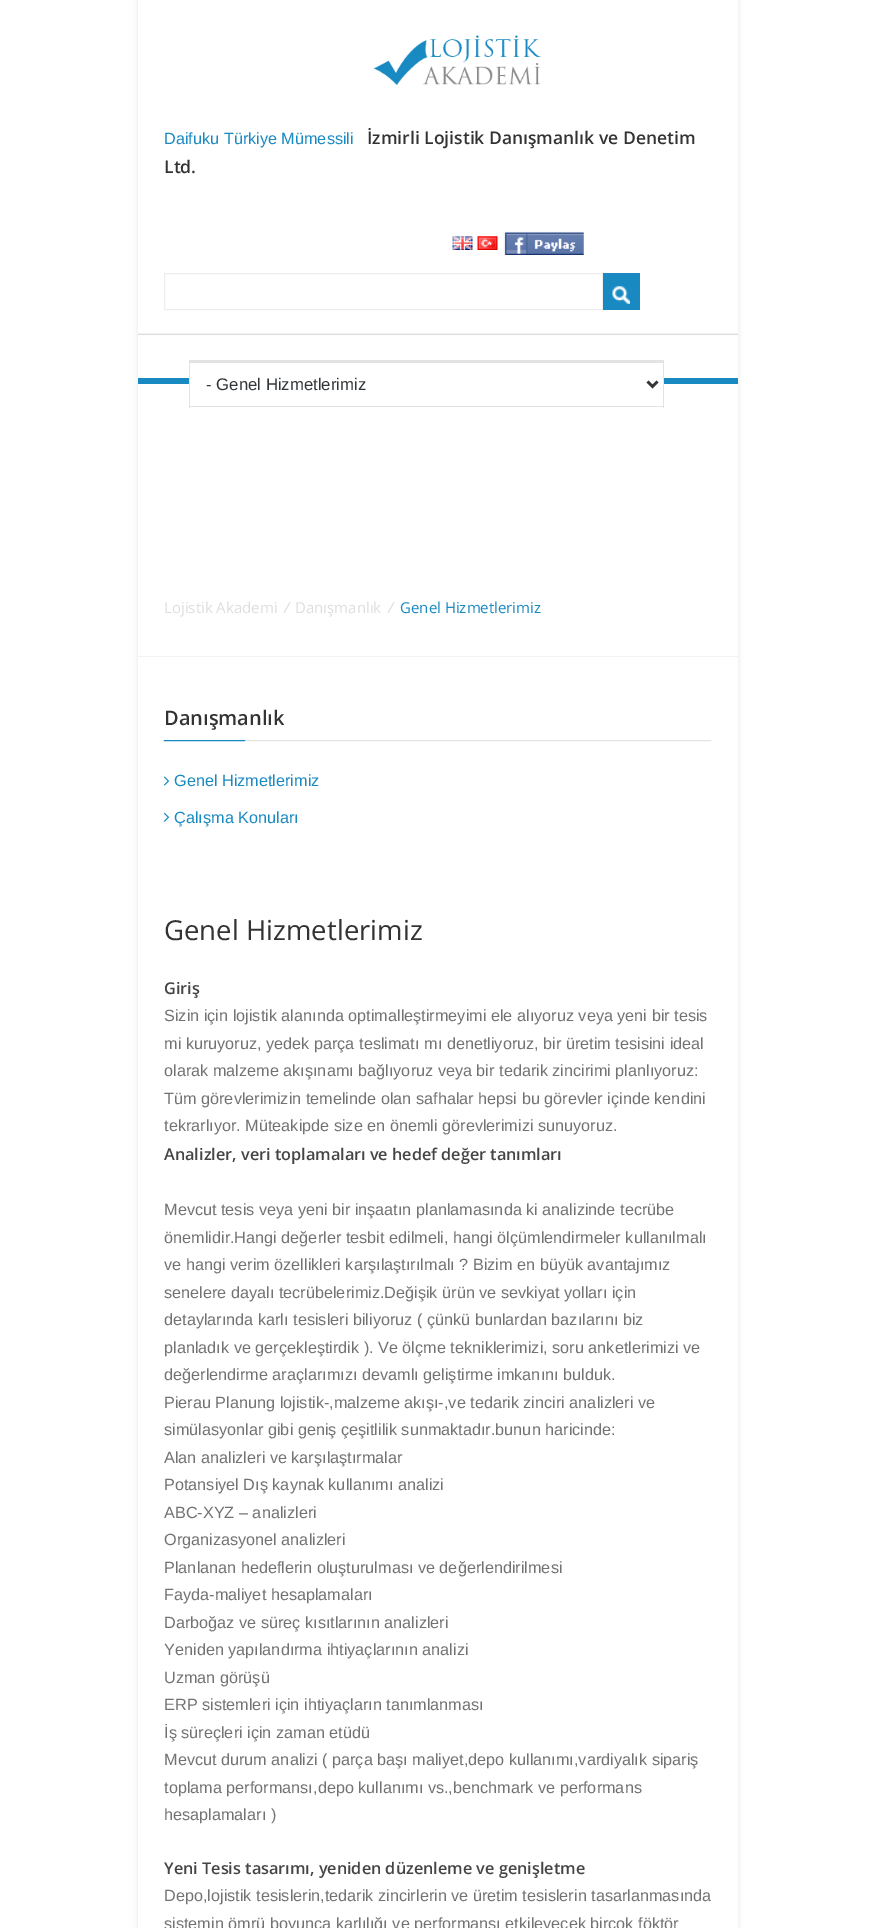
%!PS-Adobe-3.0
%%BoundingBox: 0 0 875 1928
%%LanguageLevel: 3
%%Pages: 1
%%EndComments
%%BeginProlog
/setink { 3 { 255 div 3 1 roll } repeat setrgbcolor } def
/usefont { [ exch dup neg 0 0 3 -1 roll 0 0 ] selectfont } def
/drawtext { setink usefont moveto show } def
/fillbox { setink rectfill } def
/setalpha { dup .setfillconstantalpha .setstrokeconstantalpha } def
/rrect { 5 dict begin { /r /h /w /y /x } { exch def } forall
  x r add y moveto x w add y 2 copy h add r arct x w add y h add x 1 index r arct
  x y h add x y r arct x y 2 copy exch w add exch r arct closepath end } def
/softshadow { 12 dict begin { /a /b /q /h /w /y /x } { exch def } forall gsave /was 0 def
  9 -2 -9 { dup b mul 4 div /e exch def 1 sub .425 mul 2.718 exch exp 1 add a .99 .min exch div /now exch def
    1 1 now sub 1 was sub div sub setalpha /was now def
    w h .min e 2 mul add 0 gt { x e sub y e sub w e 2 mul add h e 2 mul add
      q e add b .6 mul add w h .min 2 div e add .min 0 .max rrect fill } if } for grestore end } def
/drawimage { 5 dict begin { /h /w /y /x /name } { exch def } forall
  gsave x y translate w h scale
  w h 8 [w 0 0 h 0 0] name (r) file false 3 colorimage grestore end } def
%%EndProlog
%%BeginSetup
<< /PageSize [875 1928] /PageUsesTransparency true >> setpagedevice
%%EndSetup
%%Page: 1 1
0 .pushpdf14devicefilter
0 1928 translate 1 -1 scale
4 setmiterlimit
0 0 875 1928 255 255 255 fillbox
0 0 0 setink
138 -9 600 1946 0 3 0.1 softshadow
138 0 600 1928 255 255 255 fillbox
138 333 600 1 243 243 243 fillbox
(assets/img1.rgb) 373 35 168 50 drawimage
(Daifuku Türkiye Mümessili) 164 144 /LiberationSans-Regular 16.25 24 137 193 drawtext
(İzmirli Lojistik Danışmanlık ve Denetim) 367 144 /OpenSans-SemiBold 17.5 51 51 51 drawtext
(Ltd.) 164 173 /OpenSans-SemiBold 17.5 51 51 51 drawtext
(assets/img2.rgb) 452 236 21 14 drawimage
(assets/img3.rgb) 477 236 21 14 drawimage
(assets/img4.rgb) 503 231 81 24 drawimage
238 238 238 setink
164.5 273.5 438 36 rectstroke
603 273 37 37 24 137 193 fillbox
(assets/img5.rgb) 612 286 18 18 drawimage
138 334 600 1 220 220 220 fillbox
138 378 600 6 24 137 193 fillbox
190 378 473 6 255 255 255 fillbox
189 360 475 3 227 227 227 fillbox
663 360 1 48 227 227 227 fillbox
189 406 475 1 227 227 227 fillbox
189 360 1 48 227 227 227 fillbox
51 54 57 setink
2.5 setlinewidth
647.5 381.5 moveto 652.5 386.5 lineto 657.5 381.5 lineto stroke
(- Genel Hizmetlerimiz) 206 390 /LiberationSans-Regular 16.75 51 54 57 drawtext
138 656 600 1 243 243 243 fillbox
(Lojistik Akademi) 164 613 /OpenSans-Regular 15 221 221 221 drawtext
(/) 284 613 /OpenSans-Italic 15 221 221 221 drawtext
(Danışmanlık) 295 613 /OpenSans-Regular 15 221 221 221 drawtext
(/) 388 613 /OpenSans-Italic 15 221 221 221 drawtext
(Genel Hizmetlerimiz) 400 613 /OpenSans-Regular 15 24 137 193 drawtext
(assets/img6.rgb) 163 740 549 2 drawimage
(Danışmanlık) 164 725 /OpenSans-SemiBold 20 51 51 51 drawtext
(assets/img7.rgb) 163 776 7 10 drawimage
(Genel Hizmetlerimiz) 174 786 /LiberationSans-Regular 16.25 24 137 193 drawtext
(assets/img8.rgb) 163 812 7 10 drawimage
(Çalışma Konuları) 174 823 /LiberationSans-Regular 16.25 24 137 193 drawtext
(Genel Hizmetlerimiz) 164 940 /OpenSans-Regular 27.5 51 51 51 drawtext
(Giriş) 164 994 /OpenSans-SemiBold 16.25 69 69 69 drawtext
(Sizin için lojistik alanında optimalleştirmeyimi ele alıyoruz veya yeni bir tesis) 164 1021 /LiberationSans-Regular 16.25 114 114 114 drawtext
(mi kuruyoruz, yedek parça teslimatı mı denetliyoruz, bir üretim tesisini ideal) 164 1049 /LiberationSans-Regular 16.25 114 114 114 drawtext
(olarak malzeme akışınamı bağlıyoruz veya bir tedarik zincirimi planlıyoruz:) 164 1076 /LiberationSans-Regular 16.25 114 114 114 drawtext
(Tüm görevlerimizin temelinde olan safhalar hepsi bu görevler içinde kendini) 164 1104 /LiberationSans-Regular 16.25 114 114 114 drawtext
(tekrarlıyor. Müteakipde size en önemli görevlerimizi sunuyoruz.) 164 1131 /LiberationSans-Regular 16.25 114 114 114 drawtext
(Analizler, veri toplamaları ve hedef değer tanımları) 164 1160 /OpenSans-SemiBold 16.25 69 69 69 drawtext
(Mevcut tesis veya yeni bir inşaatın planlamasında ki analizinde tecrübe) 164 1215 /LiberationSans-Regular 16.25 114 114 114 drawtext
(önemlidir.Hangi değerler tesbit edilmeli, hangi ölçümlendirmeler kullanılmalı) 164 1243 /LiberationSans-Regular 16.25 114 114 114 drawtext
(ve hangi verim özellikleri karşılaştırılmalı ? Bizim en büyük avantajımız) 164 1270 /LiberationSans-Regular 16.25 114 114 114 drawtext
(senelere dayalı tecrübelerimiz.Değişik ürün ve sevkiyat yolları için) 164 1298 /LiberationSans-Regular 16.25 114 114 114 drawtext
(detaylarında karlı tesisleri biliyoruz \( çünkü bunlardan bazılarını biz) 164 1325 /LiberationSans-Regular 16.25 114 114 114 drawtext
(planladık ve gerçekleştirdik \). Ve ölçme tekniklerimizi, soru anketlerimizi ve) 164 1353 /LiberationSans-Regular 16.25 114 114 114 drawtext
(değerlendirme araçlarımızı devamlı geliştirme imkanını bulduk.) 164 1380 /LiberationSans-Regular 16.25 114 114 114 drawtext
(Pierau Planung lojistik-,malzeme akışı-,ve tedarik zinciri analizleri ve) 164 1408 /LiberationSans-Regular 16.25 114 114 114 drawtext
(simülasyonlar gibi geniş çeşitlilik sunmaktadır.bunun haricinde:) 164 1435 /LiberationSans-Regular 16.25 114 114 114 drawtext
(Alan analizleri ve karşılaştırmalar) 164 1463 /LiberationSans-Regular 16.25 114 114 114 drawtext
(Potansiyel Dış kaynak kullanımı analizi) 164 1490 /LiberationSans-Regular 16.25 114 114 114 drawtext
(ABC-XYZ – analizleri) 164 1518 /LiberationSans-Regular 16.25 114 114 114 drawtext
(Organizasyonel analizleri) 164 1545 /LiberationSans-Regular 16.25 114 114 114 drawtext
(Planlanan hedeflerin oluşturulması ve değerlendirilmesi) 164 1573 /LiberationSans-Regular 16.25 114 114 114 drawtext
(Fayda-maliyet hesaplamaları) 164 1600 /LiberationSans-Regular 16.25 114 114 114 drawtext
(Darboğaz ve süreç kısıtlarının analizleri) 164 1628 /LiberationSans-Regular 16.25 114 114 114 drawtext
(Yeniden yapılandırma ihtiyaçlarının analizi) 164 1655 /LiberationSans-Regular 16.25 114 114 114 drawtext
(Uzman görüşü) 164 1683 /LiberationSans-Regular 16.25 114 114 114 drawtext
(ERP sistemleri için ihtiyaçların tanımlanması) 164 1710 /LiberationSans-Regular 16.25 114 114 114 drawtext
(İş süreçleri için zaman etüdü) 164 1738 /LiberationSans-Regular 16.25 114 114 114 drawtext
(Mevcut durum analizi \( parça başı maliyet,depo kullanımı,vardiyalık sipariş) 164 1765 /LiberationSans-Regular 16.25 114 114 114 drawtext
(toplama performansı,depo kullanımı vs.,benchmark ve performans) 164 1793 /LiberationSans-Regular 16.25 114 114 114 drawtext
(hesaplamaları \)) 164 1820 /LiberationSans-Regular 16.25 114 114 114 drawtext
(Yeni Tesis tasarımı, yeniden düzenleme ve genişletme) 164 1874 /OpenSans-SemiBold 16.25 69 69 69 drawtext
(Depo,lojistik tesislerin,tedarik zincirlerin ve üretim tesislerin tasarlanmasında) 164 1901 /LiberationSans-Regular 16.25 114 114 114 drawtext
(sistemin ömrü boyunca karlılığı ve performansı etkileyecek birçok föktör) 164 1929 /LiberationSans-Regular 16.25 114 114 114 drawtext
.poppdf14devicefilter showpage
%%EOF
